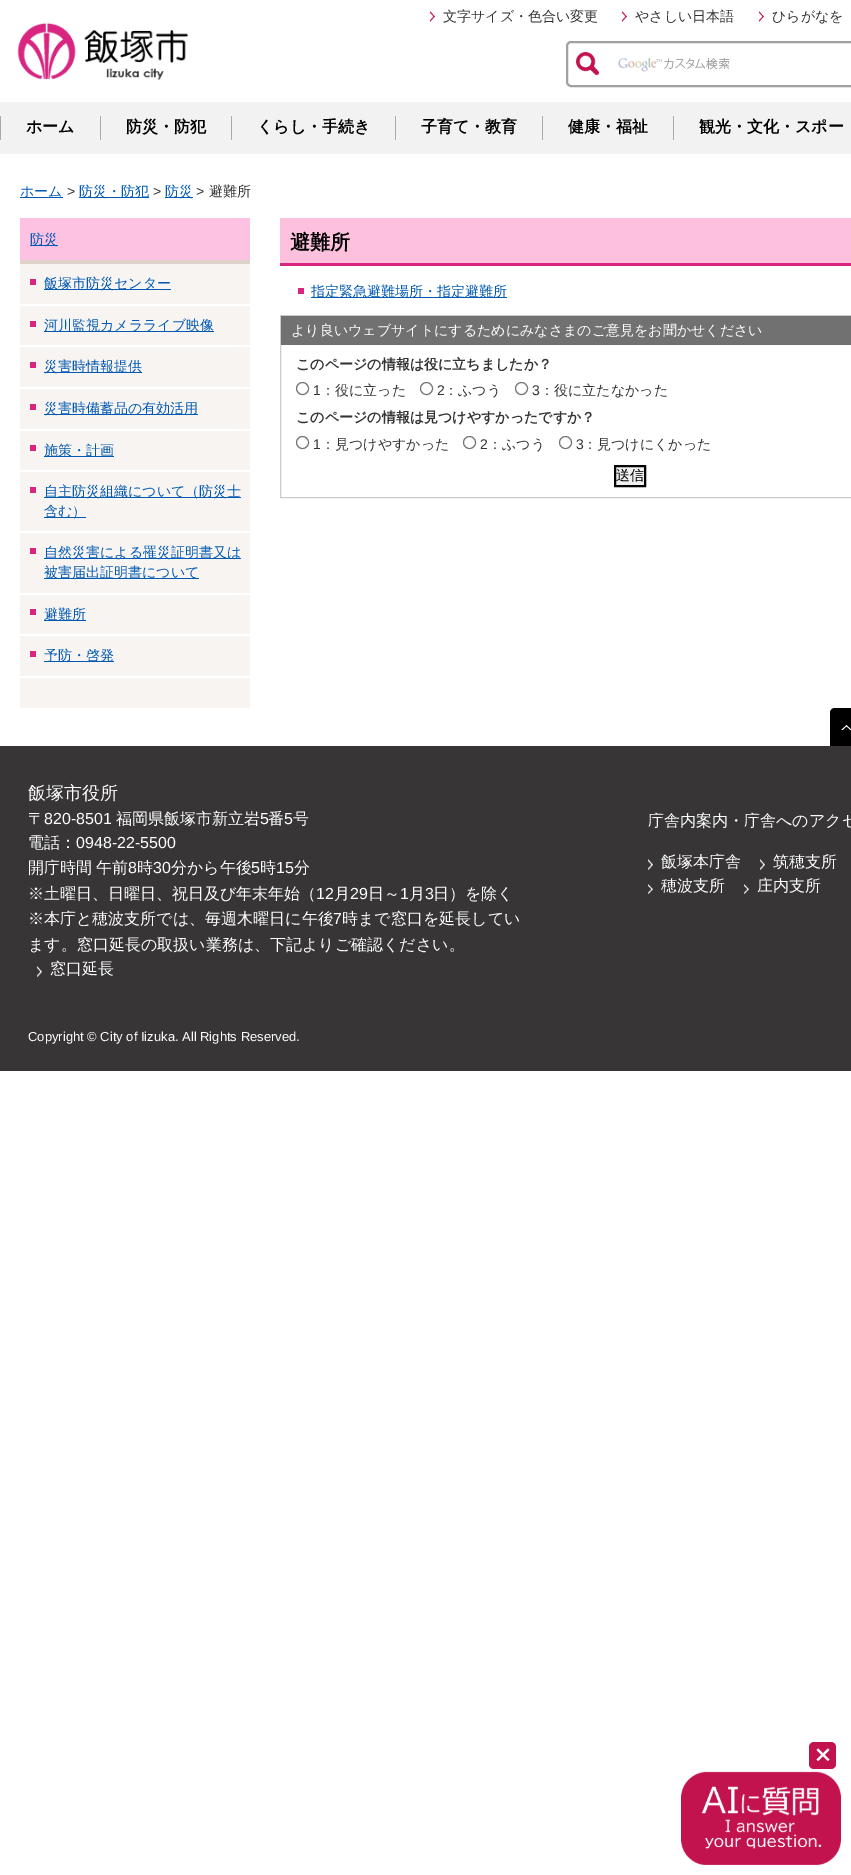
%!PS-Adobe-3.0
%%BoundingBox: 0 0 851 1875
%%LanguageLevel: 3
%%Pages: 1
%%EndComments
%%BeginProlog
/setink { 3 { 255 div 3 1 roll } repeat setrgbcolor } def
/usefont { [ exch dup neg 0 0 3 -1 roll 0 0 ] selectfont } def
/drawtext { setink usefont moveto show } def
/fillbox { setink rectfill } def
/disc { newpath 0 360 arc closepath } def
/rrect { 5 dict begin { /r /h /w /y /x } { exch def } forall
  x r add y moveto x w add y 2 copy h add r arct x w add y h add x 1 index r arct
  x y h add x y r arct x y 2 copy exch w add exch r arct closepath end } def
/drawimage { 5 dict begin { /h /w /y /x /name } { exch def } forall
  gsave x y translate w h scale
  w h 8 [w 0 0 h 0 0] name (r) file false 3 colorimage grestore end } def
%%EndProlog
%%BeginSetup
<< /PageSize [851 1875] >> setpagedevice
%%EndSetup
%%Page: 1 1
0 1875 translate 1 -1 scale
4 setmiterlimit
0 0 851 1875 255 255 255 fillbox
(assets/img1.rgb) 430 11 5 11 drawimage
(文字サイズ・色合い変更) 443 21 /WenQuanYiZenHei-Medium 14 51 51 51 drawtext
(assets/img1.rgb) 622 11 5 11 drawimage
(やさしい日本語) 635 21 /WenQuanYiZenHei-Medium 14 51 51 51 drawtext
(assets/img1.rgb) 759 11 5 11 drawimage
(ひらがなを) 772 21 /WenQuanYiZenHei-Medium 14 51 51 51 drawtext
(assets/img2.rgb) 618 58 112 14 drawimage
161 161 161 setink
2 setlinewidth
571 42 moveto 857 42 lineto 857 86 lineto 571 86 lineto 569 86 567 84 567 82 curveto 567 46 lineto 567 44 569 42 571 42 curveto closepath stroke
(assets/img3.rgb) 576 52 23 23 drawimage
(assets/img4.rgb) 10 18 178 62 drawimage
0 102 851 52 242 242 242 fillbox
0 116 1 24 170 170 170 fillbox
(ホーム) 26 132 /WenQuanYiZenHei-Bold 16 0 0 0 drawtext
100 116 1 24 170 170 170 fillbox
(防災・防犯) 126 132 /WenQuanYiZenHei-Bold 16 0 0 0 drawtext
231 116 1 24 170 170 170 fillbox
(くらし・手続き) 257 132 /WenQuanYiZenHei-Bold 16 0 0 0 drawtext
395 116 1 24 170 170 170 fillbox
(子育て・教育) 421 132 /WenQuanYiZenHei-Bold 16 0 0 0 drawtext
542 116 1 24 170 170 170 fillbox
(健康・福祉) 568 132 /WenQuanYiZenHei-Bold 16 0 0 0 drawtext
673 116 1 24 170 170 170 fillbox
(観光・文化・スポー) 699 132 /WenQuanYiZenHei-Bold 16 0 0 0 drawtext
20 197 43 1 0 89 178 fillbox
(ホーム) 20 196 /WenQuanYiZenHei-Medium 14 0 89 178 drawtext
(>) 67 196 /LiberationSans-Regular 14 51 51 51 drawtext
79 197 70 1 0 89 178 fillbox
(防災・防犯) 79 196 /WenQuanYiZenHei-Medium 14 0 89 178 drawtext
(>) 153 196 /LiberationSans-Regular 14 51 51 51 drawtext
165 197 28 1 0 89 178 fillbox
(防災) 165 196 /WenQuanYiZenHei-Medium 14 0 89 178 drawtext
(>) 196 196 /LiberationSans-Regular 14 51 51 51 drawtext
(避難所) 209 196 /WenQuanYiZenHei-Medium 14 51 51 51 drawtext
20 264 230 444 247 244 242 fillbox
20 218 230 42 253 193 225 fillbox
20 260 230 4 222 210 203 fillbox
30 245 28 1 0 89 178 fillbox
(防災) 30 244 /WenQuanYiZenHei-Medium 14 0 89 178 drawtext
30 279 6 6 217 37 128 fillbox
20 304 230 2 255 255 255 fillbox
44 289 127 1 0 89 178 fillbox
(飯塚市防災センター) 44 288 /WenQuanYiZenHei-Medium 14 0 89 178 drawtext
30 321 6 6 217 37 128 fillbox
20 345 230 2 255 255 255 fillbox
44 331 170 1 0 89 178 fillbox
(河川監視カメラライブ映像) 44 330 /WenQuanYiZenHei-Medium 14 0 89 178 drawtext
30 362 6 6 217 37 128 fillbox
20 387 230 2 255 255 255 fillbox
44 372 98 1 0 89 178 fillbox
(災害時情報提供) 44 371 /WenQuanYiZenHei-Medium 14 0 89 178 drawtext
30 404 6 6 217 37 128 fillbox
20 429 230 2 255 255 255 fillbox
44 414 154 1 0 89 178 fillbox
(災害時備蓄品の有効活用) 44 413 /WenQuanYiZenHei-Medium 14 0 89 178 drawtext
30 445 6 6 217 37 128 fillbox
20 470 230 2 255 255 255 fillbox
44 456 70 1 0 89 178 fillbox
(施策・計画) 44 455 /WenQuanYiZenHei-Medium 14 0 89 178 drawtext
30 487 6 6 217 37 128 fillbox
20 531 230 2 255 255 255 fillbox
44 497 197 1 0 89 178 fillbox
(自主防災組織について（防災士) 44 496 /WenQuanYiZenHei-Medium 14 0 89 178 drawtext
44 517 42 1 0 89 178 fillbox
(含む）) 44 516 /WenQuanYiZenHei-Medium 14 0 89 178 drawtext
30 548 6 6 217 37 128 fillbox
20 593 230 2 255 255 255 fillbox
44 558 197 1 0 89 178 fillbox
(自然災害による罹災証明書又は) 44 557 /WenQuanYiZenHei-Medium 14 0 89 178 drawtext
44 578 155 1 0 89 178 fillbox
(被害届出証明書について) 44 577 /WenQuanYiZenHei-Medium 14 0 89 178 drawtext
30 609 6 6 217 37 128 fillbox
20 634 230 2 255 255 255 fillbox
44 620 42 1 0 89 178 fillbox
(避難所) 44 619 /WenQuanYiZenHei-Medium 14 0 89 178 drawtext
30 651 6 6 217 37 128 fillbox
20 676 230 2 255 255 255 fillbox
44 661 70 1 0 89 178 fillbox
(予防・啓発) 44 660 /WenQuanYiZenHei-Medium 14 0 89 178 drawtext
280 218 571 45 253 193 222 fillbox
280 263 571 3 217 37 128 fillbox
(避難所) 290 249 /WenQuanYiZenHei-Bold 20 0 0 0 drawtext
298 288 6 6 217 37 128 fillbox
311 297 196 1 0 89 178 fillbox
(指定緊急避難場所・指定避難所) 311 296 /WenQuanYiZenHei-Medium 14 0 89 178 drawtext
204 204 204 setink
1 setlinewidth
280.5 315.5 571 182 rectstroke
281 316 570 29 114 113 113 fillbox
(より良いウェブサイトにするためにみなさまのご意見をお聞かせください) 291 335 /WenQuanYiZenHei-Medium 14 255 255 255 drawtext
(このページの情報は役に立ちましたか？) 296 369 /WenQuanYiZenHei-Bold 14 51 51 51 drawtext
118 118 118 setink
302.5 388.5 6 disc stroke
(1) 313 395 /LiberationSans-Regular 14 51 51 51 drawtext
(：役に立った) 321 395 /WenQuanYiZenHei-Medium 14 51 51 51 drawtext
118 118 118 setink
426.5 388.5 6 disc stroke
(2) 437 395 /LiberationSans-Regular 14 51 51 51 drawtext
(：ふつう) 444 395 /WenQuanYiZenHei-Medium 14 51 51 51 drawtext
118 118 118 setink
521.5 388.5 6 disc stroke
(3) 532 395 /LiberationSans-Regular 14 51 51 51 drawtext
(：役に立たなかった) 540 395 /WenQuanYiZenHei-Medium 14 51 51 51 drawtext
(このページの情報は見つけやすかったですか？) 296 422 /WenQuanYiZenHei-Bold 14 51 51 51 drawtext
118 118 118 setink
302.5 442.5 6 disc stroke
(1) 313 449 /LiberationSans-Regular 14 51 51 51 drawtext
(：見つけやすかった) 321 449 /WenQuanYiZenHei-Medium 14 51 51 51 drawtext
118 118 118 setink
469.5 442.5 6 disc stroke
(2) 480 449 /LiberationSans-Regular 14 51 51 51 drawtext
(：ふつう) 488 449 /WenQuanYiZenHei-Medium 14 51 51 51 drawtext
118 118 118 setink
565.5 442.5 6 disc stroke
(3) 576 449 /LiberationSans-Regular 14 51 51 51 drawtext
(：見つけにくかった) 583 449 /WenQuanYiZenHei-Medium 14 51 51 51 drawtext
239 239 239 setink
615 466 moveto 645 466 lineto 645 486 lineto 615 486 lineto closepath gsave fill grestore
0 0 0 setink
2 setlinewidth
stroke
(送信) 616 480 /WenQuanYiZenHei-Medium 14 0 0 0 drawtext
835 708 moveto 851 708 lineto 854 708 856 710 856 713 curveto 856 746 lineto 830 746 lineto 830 713 lineto 830 710 832 708 835 708 curveto closepath fill
(assets/img5.rgb) 841 725 10 5 drawimage
0 746 851 325 55 53 53 fillbox
(飯塚市役所) 28 799 /WenQuanYiZenHei-Medium 18 255 255 255 drawtext
(〒) 28 824 /WenQuanYiZenHei-Medium 16 255 255 255 drawtext
(820-8501) 44 824 /LiberationSans-Regular 16 255 255 255 drawtext
(福岡県飯塚市新立岩) 116 824 /WenQuanYiZenHei-Medium 16 255 255 255 drawtext
(5) 260 824 /LiberationSans-Regular 16 255 255 255 drawtext
(番) 268 824 /WenQuanYiZenHei-Medium 16 255 255 255 drawtext
(5) 284 824 /LiberationSans-Regular 16 255 255 255 drawtext
(号) 293 824 /WenQuanYiZenHei-Medium 16 255 255 255 drawtext
(電話：) 28 848 /WenQuanYiZenHei-Medium 16 255 255 255 drawtext
(0948-22-5500) 76 848 /LiberationSans-Regular 16 255 255 255 drawtext
/WenQuanYiZenHei-Medium 16 usefont
28 873 moveto -1 0 32 (開庁時間 午前) widthshow
(8) 128 873 /LiberationSans-Regular 16 255 255 255 drawtext
(時) 137 873 /WenQuanYiZenHei-Medium 16 255 255 255 drawtext
(30) 153 873 /LiberationSans-Regular 16 255 255 255 drawtext
(分から午後) 171 873 /WenQuanYiZenHei-Medium 16 255 255 255 drawtext
(5) 251 873 /LiberationSans-Regular 16 255 255 255 drawtext
(時) 260 873 /WenQuanYiZenHei-Medium 16 255 255 255 drawtext
(15) 276 873 /LiberationSans-Regular 16 255 255 255 drawtext
(分) 294 873 /WenQuanYiZenHei-Medium 16 255 255 255 drawtext
(※土曜日、日曜日、祝日及び年末年始（) 28 899 /WenQuanYiZenHei-Medium 16 255 255 255 drawtext
(12) 316 899 /LiberationSans-Regular 16 255 255 255 drawtext
(月) 334 899 /WenQuanYiZenHei-Medium 16 255 255 255 drawtext
(29) 350 899 /LiberationSans-Regular 16 255 255 255 drawtext
(日～) 368 899 /WenQuanYiZenHei-Medium 16 255 255 255 drawtext
(1) 400 899 /LiberationSans-Regular 16 255 255 255 drawtext
(月) 409 899 /WenQuanYiZenHei-Medium 16 255 255 255 drawtext
(3) 425 899 /LiberationSans-Regular 16 255 255 255 drawtext
(日）を除く) 433 899 /WenQuanYiZenHei-Medium 16 255 255 255 drawtext
(※本庁と穂波支所では、毎週木曜日に午後) 28 924 /WenQuanYiZenHei-Medium 16 255 255 255 drawtext
(7) 333 924 /LiberationSans-Regular 16 255 255 255 drawtext
(時まで窓口を延長してい) 342 924 /WenQuanYiZenHei-Medium 16 255 255 255 drawtext
(ます。窓口延長の取扱い業務は、下記よりご確認ください。) 28 950 /WenQuanYiZenHei-Medium 16 255 255 255 drawtext
(assets/img6.rgb) 37 966 5 11 drawimage
(窓口延長) 50 974 /WenQuanYiZenHei-Medium 16 255 255 255 drawtext
(庁舎内案内・庁舎へのアクセ) 648 826 /WenQuanYiZenHei-Medium 16 255 255 255 drawtext
(assets/img6.rgb) 648 859 5 11 drawimage
(飯塚本庁舎) 661 867 /WenQuanYiZenHei-Medium 16 255 255 255 drawtext
(assets/img6.rgb) 760 859 5 11 drawimage
(筑穂支所) 773 867 /WenQuanYiZenHei-Medium 16 255 255 255 drawtext
(assets/img7.rgb) 648 884 5 10 drawimage
(穂波支所) 661 891 /WenQuanYiZenHei-Medium 16 255 255 255 drawtext
(assets/img7.rgb) 744 884 5 10 drawimage
(庄内支所) 757 891 /WenQuanYiZenHei-Medium 16 255 255 255 drawtext
(Copyright © City of Iizuka. All Rights Reserved.) 28 1041 /LiberationSans-Regular 13 255 255 255 drawtext
194 19 78 setink
809 1742 27 27 5 rrect fill
255 255 255 setink
818 1748.5 moveto 829.5 1759.5 lineto 828 1761 lineto 816.5 1750 lineto closepath fill
816.5 1759.5 moveto 828 1748.5 lineto 829.5 1750 lineto 818 1761 lineto closepath fill
(assets/img8.rgb) 681 1771 160 94 drawimage
showpage
%%EOF
